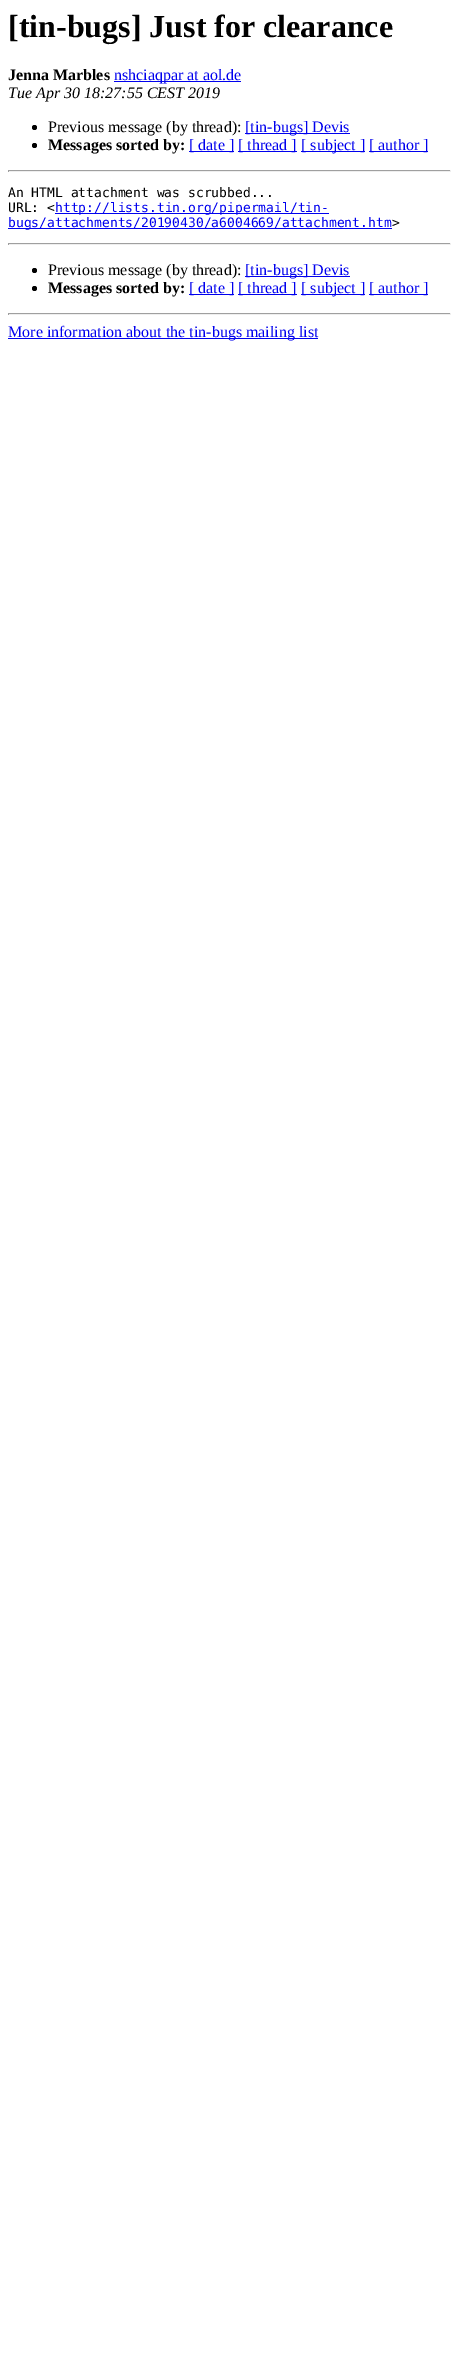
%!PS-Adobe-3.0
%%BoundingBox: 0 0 459 2358
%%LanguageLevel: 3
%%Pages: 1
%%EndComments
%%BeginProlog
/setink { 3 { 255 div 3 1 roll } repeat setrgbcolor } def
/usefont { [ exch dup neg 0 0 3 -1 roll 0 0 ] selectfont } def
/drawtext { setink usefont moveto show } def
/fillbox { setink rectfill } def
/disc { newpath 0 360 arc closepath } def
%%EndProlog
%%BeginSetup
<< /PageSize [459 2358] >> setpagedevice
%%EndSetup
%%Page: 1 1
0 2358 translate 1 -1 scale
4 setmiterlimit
0 0 459 2358 255 255 255 fillbox
([tin-bugs] Just for clearance) 8 37 /LiberationSerif-Bold 32 0 0 0 drawtext
(Jenna Marbles) 8 80 /LiberationSerif-Bold 16 0 0 0 drawtext
114 81 127 1 0 0 238 fillbox
(nshciaqpar at aol.de) 114 80 /LiberationSerif-Regular 16 0 0 238 drawtext
(Tue Apr 30 18:27:55 CEST 2019) 8 98 /LiberationSerif-Italic 16 0 0 0 drawtext
34.5 127.5 2.5 disc fill
(Previous message \(by thread\):) 48 132 /LiberationSerif-Regular 16 0 0 0 drawtext
245 133 105 1 0 0 238 fillbox
([tin-bugs] Devis) 245 132 /LiberationSerif-Regular 16 0 0 238 drawtext
0 0 0 setink
34.5 145.5 2.5 disc fill
(Messages sorted by:) 48 150 /LiberationSerif-Bold 16 0 0 0 drawtext
189 151 45 1 0 0 238 fillbox
([ date ]) 189 150 /LiberationSerif-Regular 16 0 0 238 drawtext
238 151 59 1 0 0 238 fillbox
([ thread ]) 238 150 /LiberationSerif-Regular 16 0 0 238 drawtext
301 151 64 1 0 0 238 fillbox
([ subject ]) 301 150 /LiberationSerif-Regular 16 0 0 238 drawtext
369 151 59 1 0 0 238 fillbox
([ author ]) 369 150 /LiberationSerif-Regular 16 0 0 238 drawtext
8 170 443 1 159 159 159 fillbox
450 170 1 2 238 238 238 fillbox
8 171 443 1 238 238 238 fillbox
8 170 1 2 159 159 159 fillbox
(An HTML attachment was scrubbed...) 8 197 /DejaVuSansMono-Regular 13 0 0 0 drawtext
(URL: <) 8 212 /DejaVuSansMono-Regular 13 0 0 0 drawtext
55 213 274 1 0 0 238 fillbox
(http://lists.tin.org/pipermail/tin-) 55 212 /DejaVuSansMono-Regular 13 0 0 238 drawtext
8 228 384 1 0 0 238 fillbox
(bugs/attachments/20190430/a6004669/attachment.htm) 8 227 /DejaVuSansMono-Regular 13 0 0 238 drawtext
(>) 392 227 /DejaVuSansMono-Regular 13 0 0 0 drawtext
8 243 443 1 159 159 159 fillbox
450 243 1 2 238 238 238 fillbox
8 244 443 1 238 238 238 fillbox
8 243 1 2 159 159 159 fillbox
0 0 0 setink
34.5 270.5 2.5 disc fill
(Previous message \(by thread\):) 48 275 /LiberationSerif-Regular 16 0 0 0 drawtext
245 276 105 1 0 0 238 fillbox
([tin-bugs] Devis) 245 275 /LiberationSerif-Regular 16 0 0 238 drawtext
0 0 0 setink
34.5 288.5 2.5 disc fill
(Messages sorted by:) 48 293 /LiberationSerif-Bold 16 0 0 0 drawtext
189 294 45 1 0 0 238 fillbox
([ date ]) 189 293 /LiberationSerif-Regular 16 0 0 238 drawtext
238 294 59 1 0 0 238 fillbox
([ thread ]) 238 293 /LiberationSerif-Regular 16 0 0 238 drawtext
301 294 64 1 0 0 238 fillbox
([ subject ]) 301 293 /LiberationSerif-Regular 16 0 0 238 drawtext
369 294 59 1 0 0 238 fillbox
([ author ]) 369 293 /LiberationSerif-Regular 16 0 0 238 drawtext
8 313 443 1 159 159 159 fillbox
450 313 1 2 238 238 238 fillbox
8 314 443 1 238 238 238 fillbox
8 313 1 2 159 159 159 fillbox
8 338 310 1 0 0 238 fillbox
(More information about the tin-bugs mailing list) 8 337 /LiberationSerif-Regular 16 0 0 238 drawtext
showpage
%%EOF
